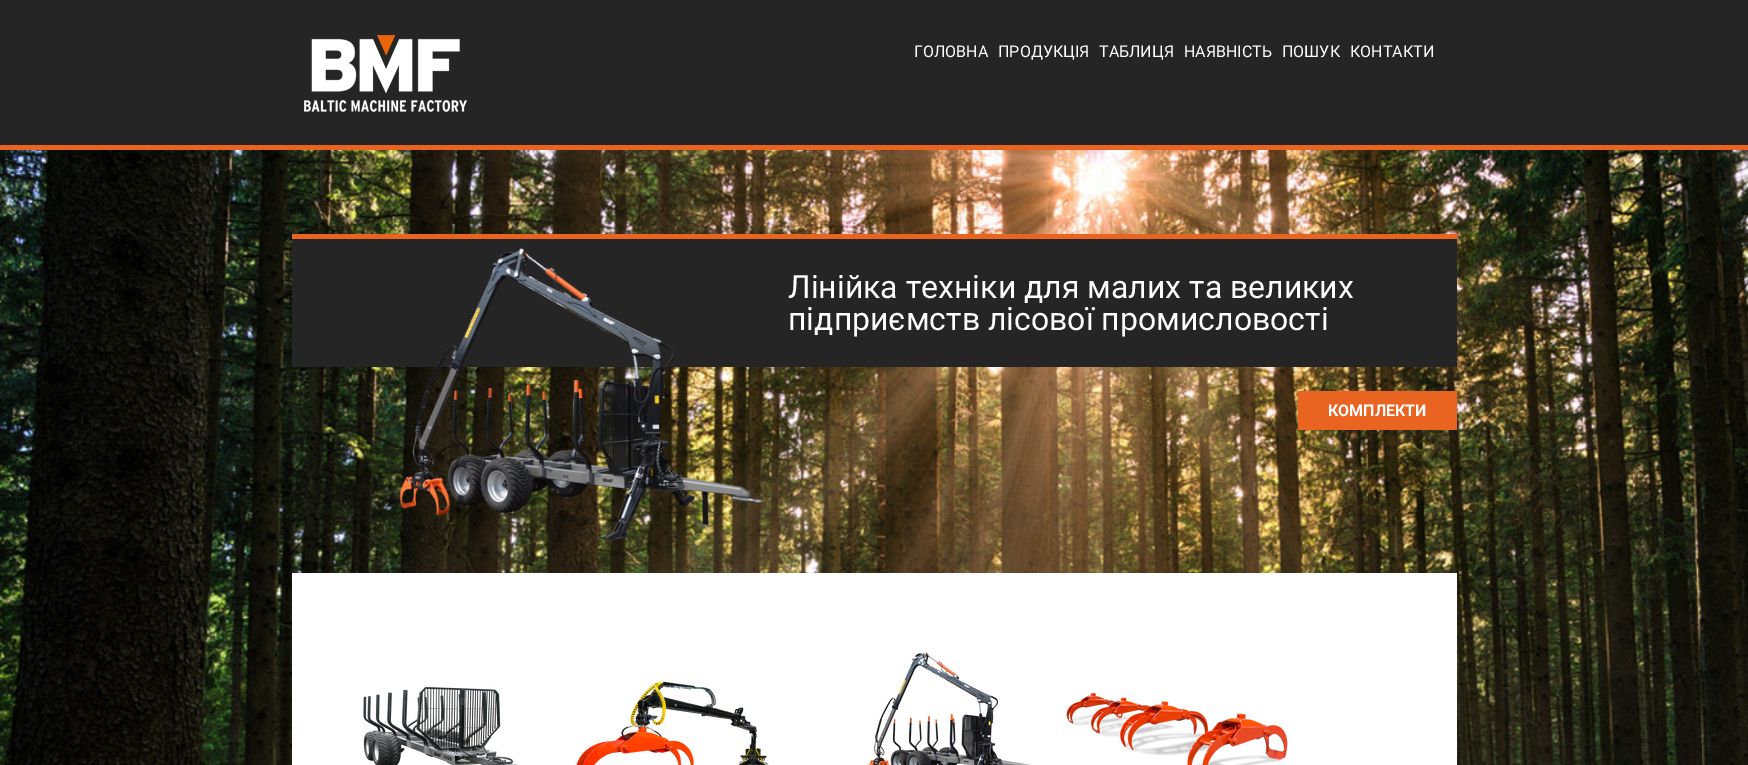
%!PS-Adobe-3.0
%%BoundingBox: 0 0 1748 765
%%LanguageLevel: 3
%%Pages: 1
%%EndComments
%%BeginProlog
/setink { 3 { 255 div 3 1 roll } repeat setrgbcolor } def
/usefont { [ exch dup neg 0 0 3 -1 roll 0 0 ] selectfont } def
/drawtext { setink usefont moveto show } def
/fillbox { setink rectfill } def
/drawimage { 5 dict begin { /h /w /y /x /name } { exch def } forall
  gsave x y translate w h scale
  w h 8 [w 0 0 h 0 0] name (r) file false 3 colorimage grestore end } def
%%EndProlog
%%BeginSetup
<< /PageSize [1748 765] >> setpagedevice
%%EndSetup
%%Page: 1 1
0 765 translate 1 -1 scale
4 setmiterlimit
0 0 1748 765 255 255 255 fillbox
(assets/img1.rgb) 0 150 1748 615 drawimage
0 0 1748 145 37 37 37 fillbox
0 145 1748 5 233 100 33 fillbox
(assets/img2.rgb) 304 35 163 77 drawimage
(ГОЛОВНА) 914 57 /Roboto-Regular 16 255 255 255 drawtext
(ПРОДУКЦІЯ) 998 57 /Roboto-Regular 16 255 255 255 drawtext
(ТАБЛИЦЯ) 1099 57 /Roboto-Regular 16 255 255 255 drawtext
(НАЯВНІСТЬ) 1184 57 /Roboto-Regular 16 255 255 255 drawtext
(ПОШУК) 1282 57 /Roboto-Regular 16 255 255 255 drawtext
(КОНТАКТИ) 1350 57 /Roboto-Regular 16 255 255 255 drawtext
292 239 1165 128 37 37 37 fillbox
(assets/img3.rgb) 399 247 365 295 drawimage
292 234 1165 5 233 100 33 fillbox
(Лінійка техніки для малих та великих) 788 298 /Roboto-Regular 32 255 255 255 drawtext
(підприємств лісової промисловості) 788 330 /Roboto-Regular 32 255 255 255 drawtext
1298 391 159 39 233 100 33 fillbox
(КОМПЛЕКТИ) 1328 416 /Roboto-Bold 16 255 255 255 drawtext
292 573 1165 192 255 255 255 fillbox
(assets/img4.rgb) 363 686 155 79 drawimage
(assets/img5.rgb) 576 681 193 84 drawimage
(assets/img6.rgb) 869 651 161 114 drawimage
(assets/img7.rgb) 1066 692 222 73 drawimage
showpage
%%EOF
